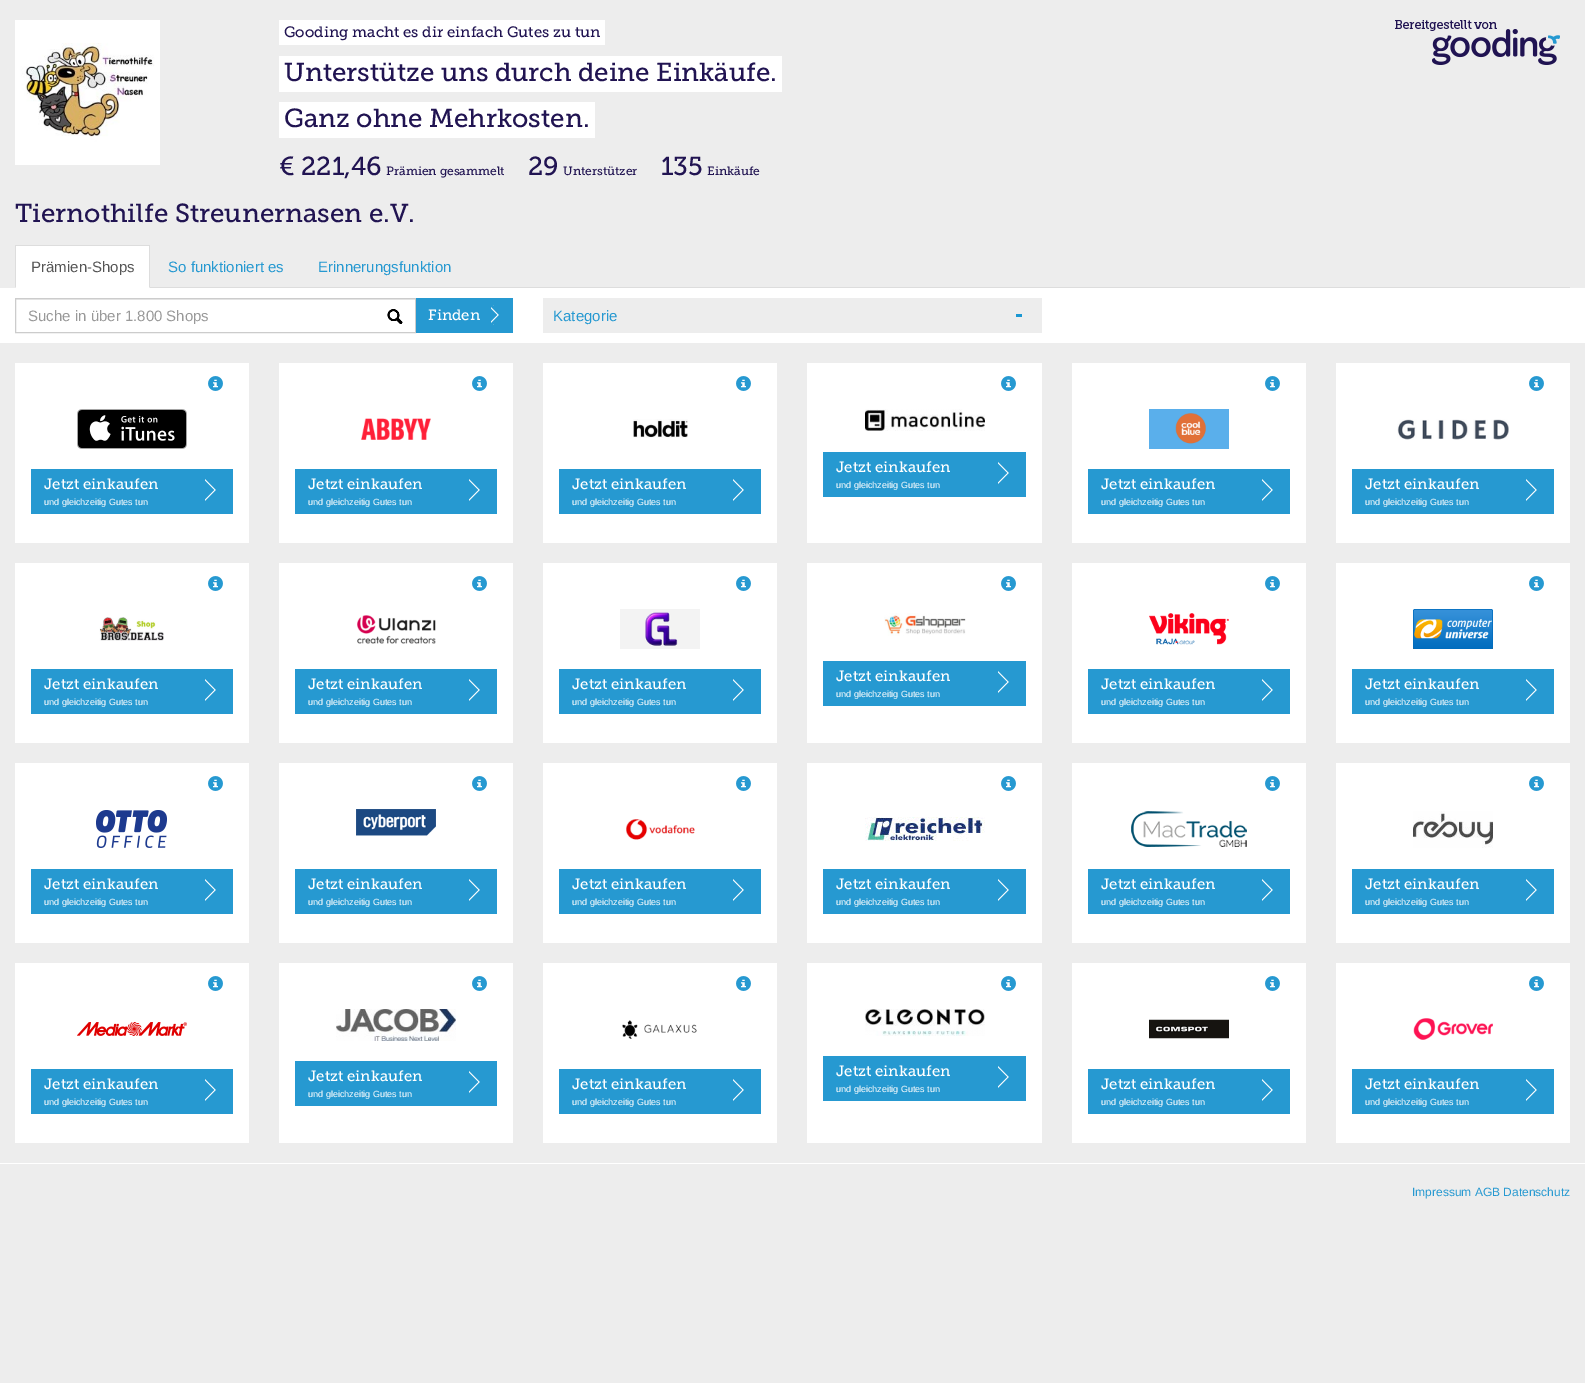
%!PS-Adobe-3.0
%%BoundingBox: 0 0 1585 1383
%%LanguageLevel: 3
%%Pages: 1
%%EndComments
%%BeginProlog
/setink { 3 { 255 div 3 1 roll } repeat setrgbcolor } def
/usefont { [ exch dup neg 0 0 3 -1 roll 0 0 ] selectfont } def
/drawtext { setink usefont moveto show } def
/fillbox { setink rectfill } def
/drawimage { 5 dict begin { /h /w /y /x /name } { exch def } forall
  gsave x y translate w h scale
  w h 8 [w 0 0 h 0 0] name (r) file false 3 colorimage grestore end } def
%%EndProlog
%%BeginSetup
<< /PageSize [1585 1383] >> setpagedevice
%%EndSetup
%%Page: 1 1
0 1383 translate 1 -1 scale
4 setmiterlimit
0 0 1585 1383 237 237 237 fillbox
(assets/img1.rgb) 15 20 145 145 drawimage
279 20 326 25 255 255 255 fillbox
(Gooding macht es dir einfach Gutes zu tun) 284 37 /MuseoSlab-Regular 15 33 20 82 drawtext
279 56 503 36 255 255 255 fillbox
(Unterstütze uns durch deine Einkäufe.) 284 81 /MuseoSlab-Regular 26 33 20 82 drawtext
279 102 316 36 255 255 255 fillbox
(Ganz ohne Mehrkosten.) 284 127 /MuseoSlab-Regular 26 33 20 82 drawtext
(assets/img2.rgb) 1395 20 165 45 drawimage
(€ 221,46) 279 175 /MuseoSlab-Regular 26 33 20 82 drawtext
(Prämien gesammelt) 386 175 /MuseoSlab-Regular 12 33 20 82 drawtext
(29) 528 175 /MuseoSlab-Regular 26 33 20 82 drawtext
(Unterstützer) 563 175 /MuseoSlab-Regular 12 33 20 82 drawtext
(135) 661 175 /MuseoSlab-Regular 26 33 20 82 drawtext
(Einkäufe) 707 175 /MuseoSlab-Regular 12 33 20 82 drawtext
(Tiernothilfe Streunernasen e.V.) 15 222 /MuseoSlab-Regular 26 33 20 82 drawtext
150 287 1420 1 221 221 221 fillbox
15 246 135 42 255 255 255 fillbox
15 245 135 1 221 221 221 fillbox
150 245 moveto 150 288 lineto 149 287 lineto 149 246 lineto closepath fill
15 288 moveto 15 245 lineto 16 246 lineto 16 287 lineto closepath fill
(Prämien-Shops) 31 272 /LiberationSans-Regular 15 85 85 85 drawtext
(So funktioniert es) 168 272 /LiberationSans-Regular 15 38 153 209 drawtext
(Erinnerungsfunktion) 318 272 /LiberationSans-Regular 15 38 153 209 drawtext
0 288 1585 55 255 255 255 fillbox
(assets/img3.rgb) 387 309 16 15 drawimage
16 299 399 1 236 236 236 fillbox
204 204 204 setink
15.5 298.5 400 34 rectstroke
(Suche in über 1.800 Shops) 28 321 /LiberationSans-Regular 15 153 153 153 drawtext
416 298 97 35 38 153 209 fillbox
(Finden) 428 320 /MuseoSlab-Regular 15 255 255 255 drawtext
(assets/img4.rgb) 491 305 8 20 drawimage
543 298 499 35 237 237 237 fillbox
1016 314 6 3 26 151 210 fillbox
(Kategorie) 553 321 /LiberationSans-Regular 15 38 153 209 drawtext
15 363 234 180 255 255 255 fillbox
(assets/img5.rgb) 208 376 15 15 drawimage
(assets/img6.rgb) 77 409 110 40 drawimage
31 469 202 45 38 153 209 fillbox
(Jetzt einkaufen) 44 489 /MuseoSlab-Regular 15 255 255 255 drawtext
(assets/img7.rgb) 205 479 11 22 drawimage
(und gleichzeitig Gutes tun) 44 505 /LiberationSans-Regular 9 255 255 255 drawtext
279 363 234 180 255 255 255 fillbox
(assets/img5.rgb) 472 376 15 15 drawimage
(assets/img8.rgb) 361 418 70 22 drawimage
295 469 202 45 38 153 209 fillbox
(Jetzt einkaufen) 308 489 /MuseoSlab-Regular 15 255 255 255 drawtext
(assets/img7.rgb) 469 479 11 22 drawimage
(und gleichzeitig Gutes tun) 308 505 /LiberationSans-Regular 9 255 255 255 drawtext
543 363 234 180 255 255 255 fillbox
(assets/img5.rgb) 736 376 15 15 drawimage
(assets/img9.rgb) 633 419 55 19 drawimage
559 469 202 45 38 153 209 fillbox
(Jetzt einkaufen) 572 489 /MuseoSlab-Regular 15 255 255 255 drawtext
(assets/img7.rgb) 733 479 11 22 drawimage
(und gleichzeitig Gutes tun) 572 505 /LiberationSans-Regular 9 255 255 255 drawtext
807 363 235 180 255 255 255 fillbox
(assets/img5.rgb) 1001 376 15 15 drawimage
(assets/img10.rgb) 865 409 120 22 drawimage
823 452 203 45 38 153 209 fillbox
(Jetzt einkaufen) 836 472 /MuseoSlab-Regular 15 255 255 255 drawtext
(assets/img7.rgb) 998 462 11 22 drawimage
(und gleichzeitig Gutes tun) 836 488 /LiberationSans-Regular 9 255 255 255 drawtext
1072 363 234 180 255 255 255 fillbox
(assets/img5.rgb) 1265 376 15 15 drawimage
(assets/img11.rgb) 1149 409 80 40 drawimage
1088 469 202 45 38 153 209 fillbox
(Jetzt einkaufen) 1101 489 /MuseoSlab-Regular 15 255 255 255 drawtext
(assets/img7.rgb) 1262 479 11 22 drawimage
(und gleichzeitig Gutes tun) 1101 505 /LiberationSans-Regular 9 255 255 255 drawtext
1336 363 234 180 255 255 255 fillbox
(assets/img5.rgb) 1529 376 15 15 drawimage
(assets/img12.rgb) 1397 419 112 21 drawimage
1352 469 202 45 38 153 209 fillbox
(Jetzt einkaufen) 1365 489 /MuseoSlab-Regular 15 255 255 255 drawtext
(assets/img7.rgb) 1526 479 11 22 drawimage
(und gleichzeitig Gutes tun) 1365 505 /LiberationSans-Regular 9 255 255 255 drawtext
15 563 234 180 255 255 255 fillbox
(assets/img5.rgb) 208 576 15 15 drawimage
(assets/img13.rgb) 99 617 65 24 drawimage
31 669 202 45 38 153 209 fillbox
(Jetzt einkaufen) 44 689 /MuseoSlab-Regular 15 255 255 255 drawtext
(assets/img7.rgb) 205 679 11 22 drawimage
(und gleichzeitig Gutes tun) 44 705 /LiberationSans-Regular 9 255 255 255 drawtext
279 563 234 180 255 255 255 fillbox
(assets/img5.rgb) 472 576 15 15 drawimage
(assets/img14.rgb) 357 615 79 29 drawimage
295 669 202 45 38 153 209 fillbox
(Jetzt einkaufen) 308 689 /MuseoSlab-Regular 15 255 255 255 drawtext
(assets/img7.rgb) 469 679 11 22 drawimage
(und gleichzeitig Gutes tun) 308 705 /LiberationSans-Regular 9 255 255 255 drawtext
543 563 234 180 255 255 255 fillbox
(assets/img5.rgb) 736 576 15 15 drawimage
(assets/img15.rgb) 620 609 80 40 drawimage
559 669 202 45 38 153 209 fillbox
(Jetzt einkaufen) 572 689 /MuseoSlab-Regular 15 255 255 255 drawtext
(assets/img7.rgb) 733 679 11 22 drawimage
(und gleichzeitig Gutes tun) 572 705 /LiberationSans-Regular 9 255 255 255 drawtext
807 563 235 180 255 255 255 fillbox
(assets/img5.rgb) 1001 576 15 15 drawimage
(assets/img16.rgb) 884 613 82 23 drawimage
823 661 203 45 38 153 209 fillbox
(Jetzt einkaufen) 836 681 /MuseoSlab-Regular 15 255 255 255 drawtext
(assets/img7.rgb) 998 671 11 22 drawimage
(und gleichzeitig Gutes tun) 836 697 /LiberationSans-Regular 9 255 255 255 drawtext
1072 563 234 180 255 255 255 fillbox
(assets/img5.rgb) 1265 576 15 15 drawimage
(assets/img17.rgb) 1149 613 80 32 drawimage
1088 669 202 45 38 153 209 fillbox
(Jetzt einkaufen) 1101 689 /MuseoSlab-Regular 15 255 255 255 drawtext
(assets/img7.rgb) 1262 679 11 22 drawimage
(und gleichzeitig Gutes tun) 1101 705 /LiberationSans-Regular 9 255 255 255 drawtext
1336 563 234 180 255 255 255 fillbox
(assets/img5.rgb) 1529 576 15 15 drawimage
(assets/img18.rgb) 1413 609 80 40 drawimage
1352 669 202 45 38 153 209 fillbox
(Jetzt einkaufen) 1365 689 /MuseoSlab-Regular 15 255 255 255 drawtext
(assets/img7.rgb) 1526 679 11 22 drawimage
(und gleichzeitig Gutes tun) 1365 705 /LiberationSans-Regular 9 255 255 255 drawtext
15 763 234 180 255 255 255 fillbox
(assets/img5.rgb) 208 776 15 15 drawimage
(assets/img19.rgb) 96 810 71 38 drawimage
31 869 202 45 38 153 209 fillbox
(Jetzt einkaufen) 44 889 /MuseoSlab-Regular 15 255 255 255 drawtext
(assets/img7.rgb) 205 879 11 22 drawimage
(und gleichzeitig Gutes tun) 44 905 /LiberationSans-Regular 9 255 255 255 drawtext
279 763 234 180 255 255 255 fillbox
(assets/img5.rgb) 472 776 15 15 drawimage
(assets/img20.rgb) 356 809 80 27 drawimage
295 869 202 45 38 153 209 fillbox
(Jetzt einkaufen) 308 889 /MuseoSlab-Regular 15 255 255 255 drawtext
(assets/img7.rgb) 469 879 11 22 drawimage
(und gleichzeitig Gutes tun) 308 905 /LiberationSans-Regular 9 255 255 255 drawtext
543 763 234 180 255 255 255 fillbox
(assets/img5.rgb) 736 776 15 15 drawimage
(assets/img21.rgb) 626 819 69 21 drawimage
559 869 202 45 38 153 209 fillbox
(Jetzt einkaufen) 572 889 /MuseoSlab-Regular 15 255 255 255 drawtext
(assets/img7.rgb) 733 879 11 22 drawimage
(und gleichzeitig Gutes tun) 572 905 /LiberationSans-Regular 9 255 255 255 drawtext
807 763 235 180 255 255 255 fillbox
(assets/img5.rgb) 1001 776 15 15 drawimage
(assets/img22.rgb) 865 817 120 24 drawimage
823 869 203 45 38 153 209 fillbox
(Jetzt einkaufen) 836 889 /MuseoSlab-Regular 15 255 255 255 drawtext
(assets/img7.rgb) 998 879 11 22 drawimage
(und gleichzeitig Gutes tun) 836 905 /LiberationSans-Regular 9 255 255 255 drawtext
1072 763 234 180 255 255 255 fillbox
(assets/img5.rgb) 1265 776 15 15 drawimage
(assets/img23.rgb) 1131 811 116 36 drawimage
1088 869 202 45 38 153 209 fillbox
(Jetzt einkaufen) 1101 889 /MuseoSlab-Regular 15 255 255 255 drawtext
(assets/img7.rgb) 1262 879 11 22 drawimage
(und gleichzeitig Gutes tun) 1101 905 /LiberationSans-Regular 9 255 255 255 drawtext
1336 763 234 180 255 255 255 fillbox
(assets/img5.rgb) 1529 776 15 15 drawimage
(assets/img24.rgb) 1413 811 80 37 drawimage
1352 869 202 45 38 153 209 fillbox
(Jetzt einkaufen) 1365 889 /MuseoSlab-Regular 15 255 255 255 drawtext
(assets/img7.rgb) 1526 879 11 22 drawimage
(und gleichzeitig Gutes tun) 1365 905 /LiberationSans-Regular 9 255 255 255 drawtext
15 963 234 180 255 255 255 fillbox
(assets/img5.rgb) 208 976 15 15 drawimage
(assets/img25.rgb) 77 1022 110 14 drawimage
31 1069 202 45 38 153 209 fillbox
(Jetzt einkaufen) 44 1089 /MuseoSlab-Regular 15 255 255 255 drawtext
(assets/img7.rgb) 205 1079 11 22 drawimage
(und gleichzeitig Gutes tun) 44 1105 /LiberationSans-Regular 9 255 255 255 drawtext
279 963 234 180 255 255 255 fillbox
(assets/img5.rgb) 472 976 15 15 drawimage
(assets/img26.rgb) 336 1009 120 32 drawimage
295 1061 202 45 38 153 209 fillbox
(Jetzt einkaufen) 308 1081 /MuseoSlab-Regular 15 255 255 255 drawtext
(assets/img7.rgb) 469 1071 11 22 drawimage
(und gleichzeitig Gutes tun) 308 1097 /LiberationSans-Regular 9 255 255 255 drawtext
543 963 234 180 255 255 255 fillbox
(assets/img5.rgb) 736 976 15 15 drawimage
(assets/img27.rgb) 622 1020 75 19 drawimage
559 1069 202 45 38 153 209 fillbox
(Jetzt einkaufen) 572 1089 /MuseoSlab-Regular 15 255 255 255 drawtext
(assets/img7.rgb) 733 1079 11 22 drawimage
(und gleichzeitig Gutes tun) 572 1105 /LiberationSans-Regular 9 255 255 255 drawtext
807 963 235 180 255 255 255 fillbox
(assets/img5.rgb) 1001 976 15 15 drawimage
(assets/img28.rgb) 865 1009 120 27 drawimage
823 1056 203 45 38 153 209 fillbox
(Jetzt einkaufen) 836 1076 /MuseoSlab-Regular 15 255 255 255 drawtext
(assets/img7.rgb) 998 1066 11 22 drawimage
(und gleichzeitig Gutes tun) 836 1092 /LiberationSans-Regular 9 255 255 255 drawtext
1072 963 234 180 255 255 255 fillbox
(assets/img5.rgb) 1265 976 15 15 drawimage
(assets/img29.rgb) 1149 1019 80 20 drawimage
1088 1069 202 45 38 153 209 fillbox
(Jetzt einkaufen) 1101 1089 /MuseoSlab-Regular 15 255 255 255 drawtext
(assets/img7.rgb) 1262 1079 11 22 drawimage
(und gleichzeitig Gutes tun) 1101 1105 /LiberationSans-Regular 9 255 255 255 drawtext
1336 963 234 180 255 255 255 fillbox
(assets/img5.rgb) 1529 976 15 15 drawimage
(assets/img30.rgb) 1413 1018 80 22 drawimage
1352 1069 202 45 38 153 209 fillbox
(Jetzt einkaufen) 1365 1089 /MuseoSlab-Regular 15 255 255 255 drawtext
(assets/img7.rgb) 1526 1079 11 22 drawimage
(und gleichzeitig Gutes tun) 1365 1105 /LiberationSans-Regular 9 255 255 255 drawtext
0 1163 1585 1 255 255 255 fillbox
(Impressum AGB Datenschutz) 1412 1196 /LiberationSans-Regular 12 38 153 209 drawtext
showpage
%%EOF
